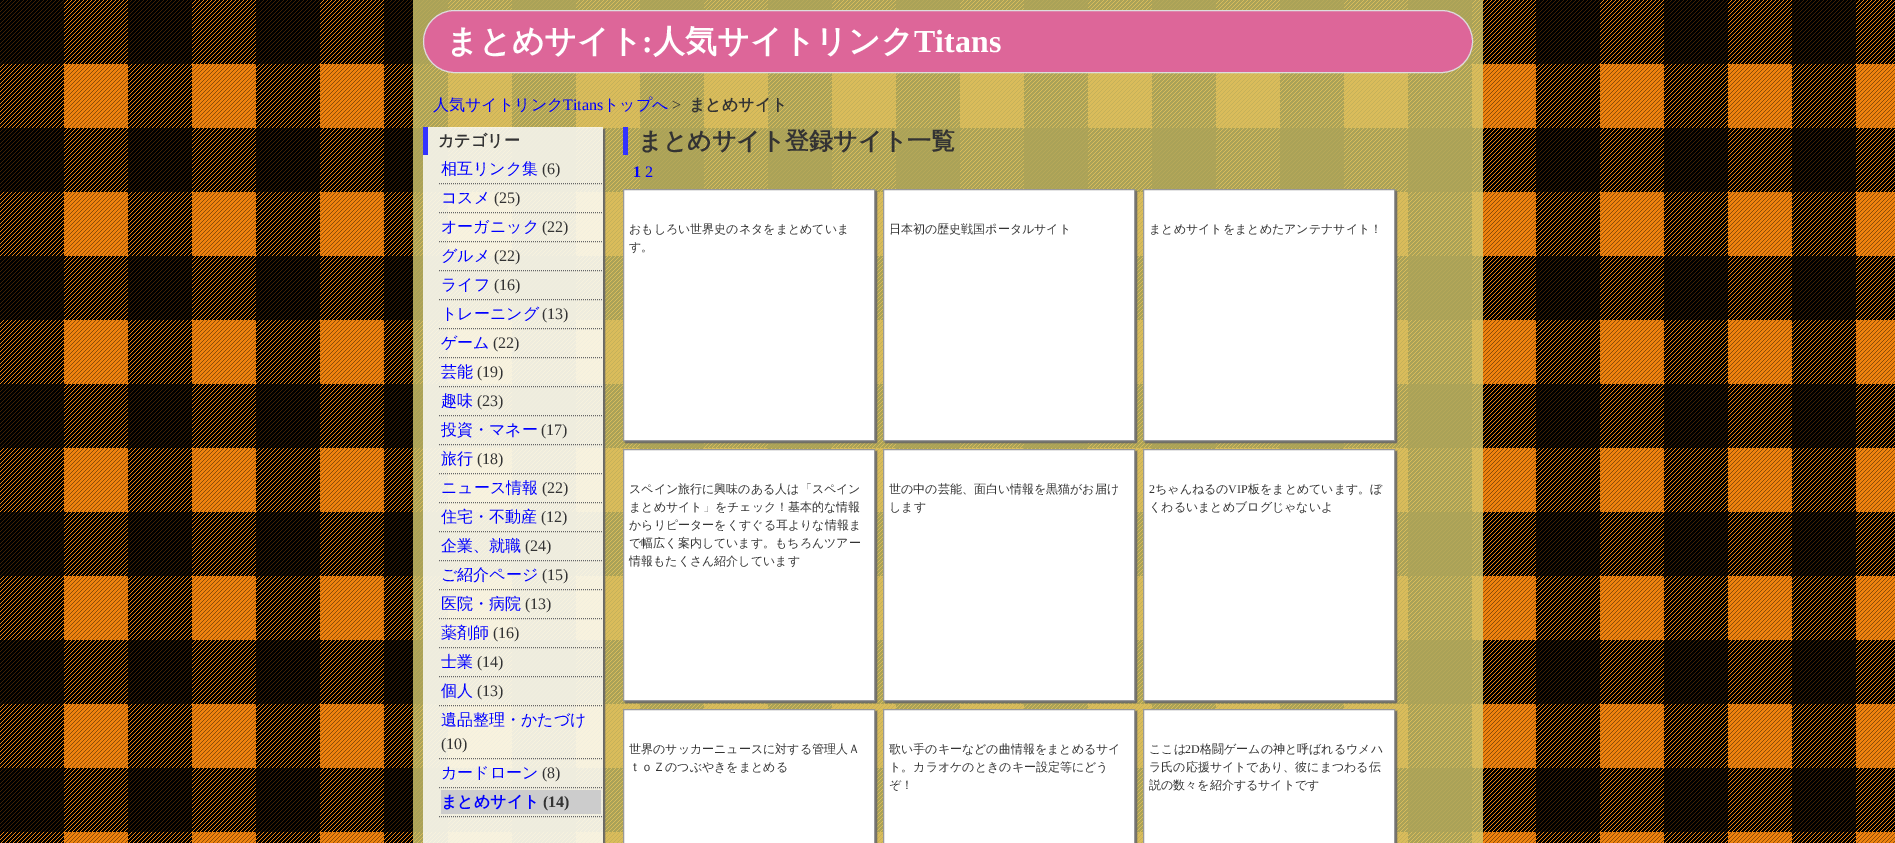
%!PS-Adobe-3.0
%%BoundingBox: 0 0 1895 843
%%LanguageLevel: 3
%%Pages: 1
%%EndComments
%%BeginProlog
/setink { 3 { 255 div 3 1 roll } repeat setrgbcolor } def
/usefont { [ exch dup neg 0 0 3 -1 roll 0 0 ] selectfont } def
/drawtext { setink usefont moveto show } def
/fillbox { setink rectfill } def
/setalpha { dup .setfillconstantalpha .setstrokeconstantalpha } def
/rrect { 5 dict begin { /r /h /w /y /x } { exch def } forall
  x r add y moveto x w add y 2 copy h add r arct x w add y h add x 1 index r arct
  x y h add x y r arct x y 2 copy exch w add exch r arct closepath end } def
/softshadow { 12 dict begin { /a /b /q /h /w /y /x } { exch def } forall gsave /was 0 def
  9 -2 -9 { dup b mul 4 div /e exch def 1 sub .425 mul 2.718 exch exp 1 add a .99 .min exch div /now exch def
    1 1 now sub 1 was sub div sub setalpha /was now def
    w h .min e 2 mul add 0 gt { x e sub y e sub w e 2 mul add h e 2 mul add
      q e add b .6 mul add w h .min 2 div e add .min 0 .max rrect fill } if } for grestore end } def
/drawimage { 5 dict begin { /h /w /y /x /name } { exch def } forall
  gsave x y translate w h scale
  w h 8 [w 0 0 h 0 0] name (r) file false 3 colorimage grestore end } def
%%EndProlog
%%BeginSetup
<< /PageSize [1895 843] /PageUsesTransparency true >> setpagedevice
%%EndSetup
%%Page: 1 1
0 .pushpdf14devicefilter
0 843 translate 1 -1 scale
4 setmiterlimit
0 0 1895 843 255 255 255 fillbox
(assets/img1.rgb) 0 0 1895 843 drawimage
0.8 setalpha
413 0 1070 843 212 202 110 fillbox
1 setalpha
221 102 153 setink
423.5 10.5 1049 62 31 rrect gsave fill grestore
221 221 221 setink
stroke
(まとめサイト) 446 52 /WenQuanYiZenHei-Bold 32 255 255 255 drawtext
(:) 642 52 /LiberationSerif-Bold 32 255 255 255 drawtext
(人気サイトリンク) 653 52 /WenQuanYiZenHei-Bold 32 255 255 255 drawtext
(Titans) 914 52 /LiberationSerif-Bold 32 255 255 255 drawtext
(人気サイトリンク) 433 110 /WenQuanYiZenHei-Medium 16 0 0 255 drawtext
(Titans) 563 110 /LiberationSerif-Regular 16 0 0 255 drawtext
(トップへ) 603 110 /WenQuanYiZenHei-Medium 16 0 0 255 drawtext
(>) 672 110 /LiberationSerif-Regular 16 51 51 51 drawtext
(まとめサイト) 689 110 /WenQuanYiZenHei-Bold 16 51 51 51 drawtext
gsave
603 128 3 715 rectclip
102 102 102 setink
425 129 180 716 0 0.5 1 softshadow
grestore
0.8 setalpha
423 127 180 716 255 255 255 fillbox
1 setalpha
423 127 5 28 51 51 255 fillbox
(カテゴリー) 438 146 /WenQuanYiZenHei-Bold 16 51 51 51 drawtext
102 102 102 setink
[1 1] 0 setdash
439 183.5 moveto 603 183.5 lineto stroke
(相互リンク集) 441 174 /WenQuanYiZenHei-Medium 16 0 0 255 drawtext
(\(6\)) 542 174 /LiberationSerif-Regular 16 51 51 51 drawtext
102 102 102 setink
439 212.5 moveto 603 212.5 lineto stroke
(コスメ) 441 203 /WenQuanYiZenHei-Medium 16 0 0 255 drawtext
(\(25\)) 494 203 /LiberationSerif-Regular 16 51 51 51 drawtext
102 102 102 setink
439 241.5 moveto 603 241.5 lineto stroke
(オーガニック) 441 232 /WenQuanYiZenHei-Medium 16 0 0 255 drawtext
(\(22\)) 542 232 /LiberationSerif-Regular 16 51 51 51 drawtext
102 102 102 setink
439 270.5 moveto 603 270.5 lineto stroke
(グルメ) 441 261 /WenQuanYiZenHei-Medium 16 0 0 255 drawtext
(\(22\)) 494 261 /LiberationSerif-Regular 16 51 51 51 drawtext
102 102 102 setink
439 299.5 moveto 603 299.5 lineto stroke
(ライフ) 441 290 /WenQuanYiZenHei-Medium 16 0 0 255 drawtext
(\(16\)) 494 290 /LiberationSerif-Regular 16 51 51 51 drawtext
102 102 102 setink
439 328.5 moveto 603 328.5 lineto stroke
(トレーニング) 441 319 /WenQuanYiZenHei-Medium 16 0 0 255 drawtext
(\(13\)) 542 319 /LiberationSerif-Regular 16 51 51 51 drawtext
102 102 102 setink
439 357.5 moveto 603 357.5 lineto stroke
(ゲーム) 441 348 /WenQuanYiZenHei-Medium 16 0 0 255 drawtext
(\(22\)) 493 348 /LiberationSerif-Regular 16 51 51 51 drawtext
102 102 102 setink
439 386.5 moveto 603 386.5 lineto stroke
(芸能) 441 377 /WenQuanYiZenHei-Medium 16 0 0 255 drawtext
(\(19\)) 477 377 /LiberationSerif-Regular 16 51 51 51 drawtext
102 102 102 setink
439 415.5 moveto 603 415.5 lineto stroke
(趣味) 441 406 /WenQuanYiZenHei-Medium 16 0 0 255 drawtext
(\(23\)) 477 406 /LiberationSerif-Regular 16 51 51 51 drawtext
102 102 102 setink
439 444.5 moveto 603 444.5 lineto stroke
(投資・マネー) 441 435 /WenQuanYiZenHei-Medium 16 0 0 255 drawtext
(\(17\)) 541 435 /LiberationSerif-Regular 16 51 51 51 drawtext
102 102 102 setink
439 473.5 moveto 603 473.5 lineto stroke
(旅行) 441 464 /WenQuanYiZenHei-Medium 16 0 0 255 drawtext
(\(18\)) 477 464 /LiberationSerif-Regular 16 51 51 51 drawtext
102 102 102 setink
439 502.5 moveto 603 502.5 lineto stroke
(ニュース情報) 441 493 /WenQuanYiZenHei-Medium 16 0 0 255 drawtext
(\(22\)) 542 493 /LiberationSerif-Regular 16 51 51 51 drawtext
102 102 102 setink
439 531.5 moveto 603 531.5 lineto stroke
(住宅・不動産) 441 522 /WenQuanYiZenHei-Medium 16 0 0 255 drawtext
(\(12\)) 541 522 /LiberationSerif-Regular 16 51 51 51 drawtext
102 102 102 setink
439 560.5 moveto 603 560.5 lineto stroke
(企業、就職) 441 551 /WenQuanYiZenHei-Medium 16 0 0 255 drawtext
(\(24\)) 525 551 /LiberationSerif-Regular 16 51 51 51 drawtext
102 102 102 setink
439 589.5 moveto 603 589.5 lineto stroke
(ご紹介ページ) 441 580 /WenQuanYiZenHei-Medium 16 0 0 255 drawtext
(\(15\)) 542 580 /LiberationSerif-Regular 16 51 51 51 drawtext
102 102 102 setink
439 618.5 moveto 603 618.5 lineto stroke
(医院・病院) 441 609 /WenQuanYiZenHei-Medium 16 0 0 255 drawtext
(\(13\)) 525 609 /LiberationSerif-Regular 16 51 51 51 drawtext
102 102 102 setink
439 647.5 moveto 603 647.5 lineto stroke
(薬剤師) 441 638 /WenQuanYiZenHei-Medium 16 0 0 255 drawtext
(\(16\)) 493 638 /LiberationSerif-Regular 16 51 51 51 drawtext
102 102 102 setink
439 676.5 moveto 603 676.5 lineto stroke
(士業) 441 667 /WenQuanYiZenHei-Medium 16 0 0 255 drawtext
(\(14\)) 477 667 /LiberationSerif-Regular 16 51 51 51 drawtext
102 102 102 setink
439 705.5 moveto 603 705.5 lineto stroke
(個人) 441 696 /WenQuanYiZenHei-Medium 16 0 0 255 drawtext
(\(13\)) 477 696 /LiberationSerif-Regular 16 51 51 51 drawtext
102 102 102 setink
439 758.5 moveto 603 758.5 lineto stroke
(遺品整理・かたづけ) 441 725 /WenQuanYiZenHei-Medium 16 0 0 255 drawtext
(\(10\)) 441 749 /LiberationSerif-Regular 16 51 51 51 drawtext
102 102 102 setink
439 787.5 moveto 603 787.5 lineto stroke
(カードローン) 441 778 /WenQuanYiZenHei-Medium 16 0 0 255 drawtext
(\(8\)) 542 778 /LiberationSerif-Regular 16 51 51 51 drawtext
102 102 102 setink
439 816.5 moveto 603 816.5 lineto stroke
441 790 160 24 204 204 204 fillbox
(まとめサイト) 441 807 /WenQuanYiZenHei-Bold 16 0 0 255 drawtext
(\(14\)) 543 807 /LiberationSerif-Bold 16 51 51 51 drawtext
623 127 5 28 51 51 255 fillbox
(まとめサイト登録サイト一覧) 638 149 /WenQuanYiZenHei-Bold 24 51 51 51 drawtext
(1) 633 177 /LiberationSerif-Bold 16 0 0 255 drawtext
(2) 645 177 /LiberationSerif-Regular 16 0 0 255 drawtext
102 102 102 setink
625 191 252 252 0 0.5 1 softshadow
255 255 255 setink
623.5 189.5 moveto 874.5 189.5 lineto 874.5 440.5 lineto 623.5 440.5 lineto closepath gsave fill grestore
153 153 153 setink
[] 0 setdash
stroke
(おもしろい世界史のネタをまとめていま) 629 233 /WenQuanYiZenHei-Medium 12 51 51 51 drawtext
(す。) 629 251 /WenQuanYiZenHei-Medium 12 51 51 51 drawtext
102 102 102 setink
885 191 252 252 0 0.5 1 softshadow
255 255 255 setink
883.5 189.5 moveto 1134.5 189.5 lineto 1134.5 440.5 lineto 883.5 440.5 lineto closepath gsave fill grestore
153 153 153 setink
stroke
(日本初の歴史戦国ポータルサイト) 889 233 /WenQuanYiZenHei-Medium 12 51 51 51 drawtext
102 102 102 setink
1145 191 252 252 0 0.5 1 softshadow
255 255 255 setink
1143.5 189.5 moveto 1394.5 189.5 lineto 1394.5 440.5 lineto 1143.5 440.5 lineto closepath gsave fill grestore
153 153 153 setink
stroke
(まとめサイトをまとめたアンテナサイト！) 1149 233 /WenQuanYiZenHei-Medium 12 51 51 51 drawtext
102 102 102 setink
625 451 252 252 0 0.5 1 softshadow
255 255 255 setink
623.5 449.5 moveto 874.5 449.5 lineto 874.5 700.5 lineto 623.5 700.5 lineto closepath gsave fill grestore
153 153 153 setink
stroke
(スペイン旅行に興味のある人は「スペイン) 629 493 /WenQuanYiZenHei-Medium 12 51 51 51 drawtext
(まとめサイト」をチェック！基本的な情報) 629 511 /WenQuanYiZenHei-Medium 12 51 51 51 drawtext
(からリピーターをくすぐる耳よりな情報ま) 629 529 /WenQuanYiZenHei-Medium 12 51 51 51 drawtext
(で幅広く案内しています。もちろんツアー) 629 547 /WenQuanYiZenHei-Medium 12 51 51 51 drawtext
(情報もたくさん紹介しています) 629 565 /WenQuanYiZenHei-Medium 12 51 51 51 drawtext
102 102 102 setink
885 451 252 252 0 0.5 1 softshadow
255 255 255 setink
883.5 449.5 moveto 1134.5 449.5 lineto 1134.5 700.5 lineto 883.5 700.5 lineto closepath gsave fill grestore
153 153 153 setink
stroke
(世の中の芸能、面白い情報を黒猫がお届け) 889 493 /WenQuanYiZenHei-Medium 12 51 51 51 drawtext
(します) 889 511 /WenQuanYiZenHei-Medium 12 51 51 51 drawtext
102 102 102 setink
1145 451 252 252 0 0.5 1 softshadow
255 255 255 setink
1143.5 449.5 moveto 1394.5 449.5 lineto 1394.5 700.5 lineto 1143.5 700.5 lineto closepath gsave fill grestore
153 153 153 setink
stroke
(2) 1149 493 /LiberationSerif-Regular 12 51 51 51 drawtext
(ちゃんねるの) 1155 493 /WenQuanYiZenHei-Medium 12 51 51 51 drawtext
(VIP) 1228 493 /LiberationSerif-Regular 12 51 51 51 drawtext
(板をまとめています。ぼ) 1248 493 /WenQuanYiZenHei-Medium 12 51 51 51 drawtext
(くわるいまとめブログじゃないよ) 1149 511 /WenQuanYiZenHei-Medium 12 51 51 51 drawtext
102 102 102 setink
625 711 252 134 0 0.5 1 softshadow
255 255 255 setink
623.5 709.5 moveto 874.5 709.5 lineto 874.5 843.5 lineto 623.5 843.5 lineto closepath gsave fill grestore
153 153 153 setink
stroke
(世界のサッカーニュースに対する管理人Ａ) 629 753 /WenQuanYiZenHei-Medium 12 51 51 51 drawtext
(ｔｏＺのつぶやきをまとめる) 629 771 /WenQuanYiZenHei-Medium 12 51 51 51 drawtext
102 102 102 setink
885 711 252 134 0 0.5 1 softshadow
255 255 255 setink
883.5 709.5 moveto 1134.5 709.5 lineto 1134.5 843.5 lineto 883.5 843.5 lineto closepath gsave fill grestore
153 153 153 setink
stroke
(歌い手のキーなどの曲情報をまとめるサイ) 889 753 /WenQuanYiZenHei-Medium 12 51 51 51 drawtext
(ト。カラオケのときのキー設定等にどう) 889 771 /WenQuanYiZenHei-Medium 12 51 51 51 drawtext
(ぞ！) 889 789 /WenQuanYiZenHei-Medium 12 51 51 51 drawtext
102 102 102 setink
1145 711 252 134 0 0.5 1 softshadow
255 255 255 setink
1143.5 709.5 moveto 1394.5 709.5 lineto 1394.5 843.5 lineto 1143.5 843.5 lineto closepath gsave fill grestore
153 153 153 setink
stroke
(ここは) 1149 753 /WenQuanYiZenHei-Medium 12 51 51 51 drawtext
(2D) 1185 753 /LiberationSerif-Regular 12 51 51 51 drawtext
(格闘ゲームの神と呼ばれるウメハ) 1200 753 /WenQuanYiZenHei-Medium 12 51 51 51 drawtext
(ラ氏の応援サイトであり、彼にまつわる伝) 1149 771 /WenQuanYiZenHei-Medium 12 51 51 51 drawtext
(説の数々を紹介するサイトです) 1149 789 /WenQuanYiZenHei-Medium 12 51 51 51 drawtext
.poppdf14devicefilter showpage
%%EOF
